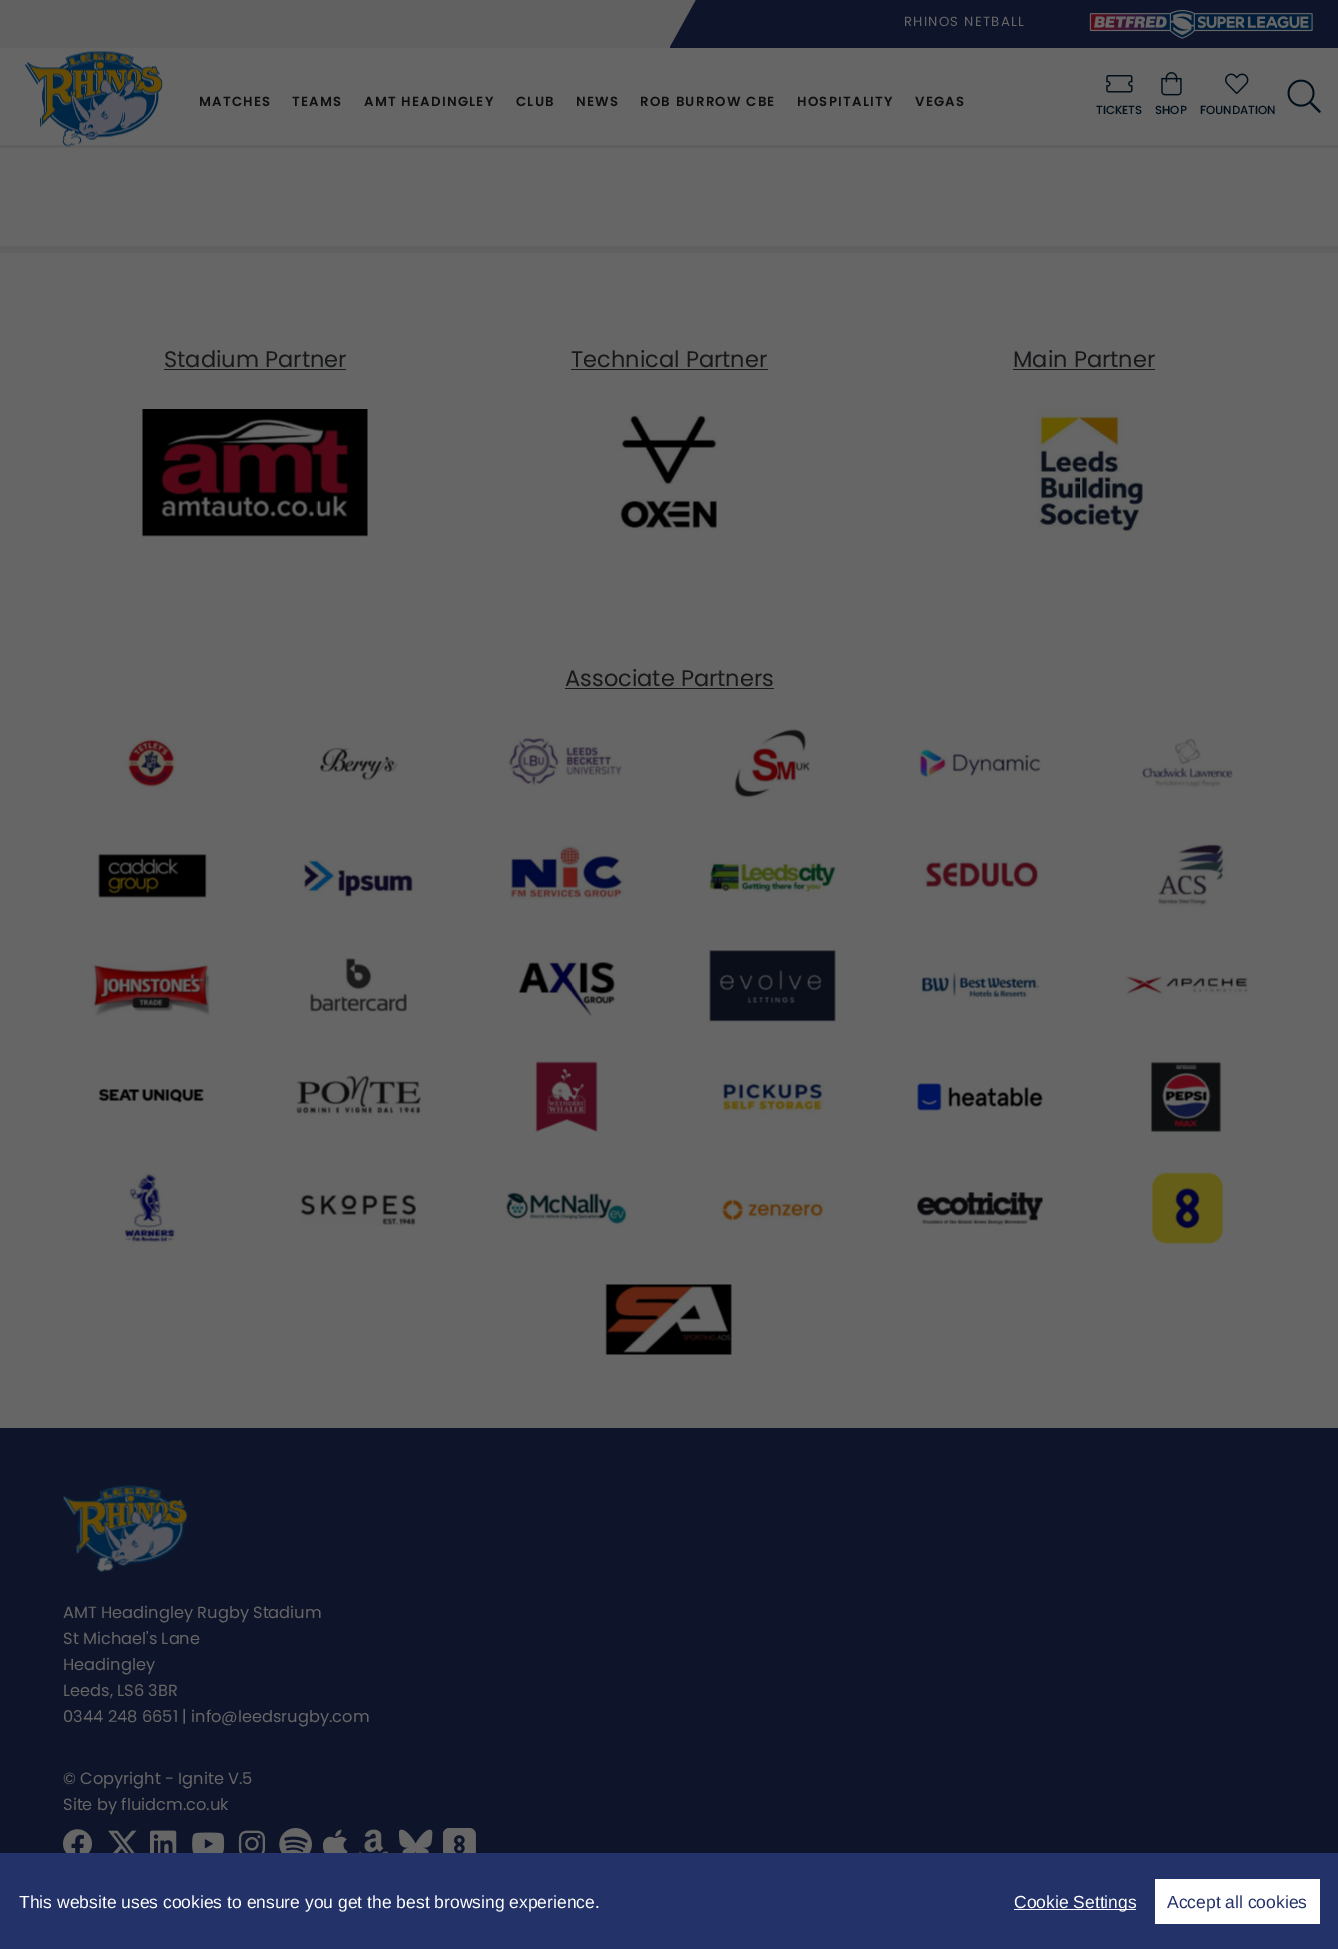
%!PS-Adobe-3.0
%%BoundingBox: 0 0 1338 1949
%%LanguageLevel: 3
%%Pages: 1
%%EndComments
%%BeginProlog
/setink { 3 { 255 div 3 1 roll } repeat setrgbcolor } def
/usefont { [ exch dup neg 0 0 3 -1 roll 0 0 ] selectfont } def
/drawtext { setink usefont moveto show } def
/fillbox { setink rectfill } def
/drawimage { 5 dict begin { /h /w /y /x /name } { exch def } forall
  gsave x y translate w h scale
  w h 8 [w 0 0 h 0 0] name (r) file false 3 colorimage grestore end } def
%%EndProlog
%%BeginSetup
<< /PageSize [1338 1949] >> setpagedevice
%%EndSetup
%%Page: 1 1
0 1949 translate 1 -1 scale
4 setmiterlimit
0 0 1338 1949 102 102 102 fillbox
0 0 696 48 97 97 97 fillbox
14 20 42 setink
696 0 moveto 670 47 lineto 670 48 lineto 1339 48 lineto 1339 0 lineto closepath fill
/Poppins-Regular 13.25 usefont
102 102 102 setink
904 26 moveto 1.25 0 (RHINOS NETBALL) ashow
(assets/img1.rgb) 1089 10 224 29 drawimage
0 145 1338 3 95 95 95 fillbox
(assets/img2.rgb) 25 51 138 96 drawimage
/Poppins-SemiBold 13.25 usefont
14 14 14 setink
199 106 moveto 1.25 0 (MATCHES) ashow
292 106 moveto 1.25 0 (TEAMS) ashow
364 106 moveto 1.25 0 (AMT HEADINGLEY) ashow
516 106 moveto 1.25 0 (CLUB) ashow
576 106 moveto 1.25 0 (NEWS) ashow
640 106 moveto 1.25 0 (ROB BURROW CBE) ashow
797 106 moveto 1.25 0 (HOSPITALITY) ashow
915 106 moveto 1.25 0 (VEGAS) ashow
(assets/img3.rgb) 1106 75 27 18 drawimage
(TICKETS) 1096 114 /Poppins-Medium 11.75 0 14 25 drawtext
(assets/img4.rgb) 1161 72 21 24 drawimage
(SHOP) 1155 114 /Poppins-Medium 11.75 0 14 25 drawtext
(assets/img5.rgb) 1225 73 24 21 drawimage
(FOUNDATION) 1200 114 /Poppins-Medium 11.75 0 14 25 drawtext
(assets/img6.rgb) 1287 79 34 34 drawimage
0 246 1338 7 96 96 96 fillbox
(Stadium Partner) 164 367 /Poppins-Regular 22.5 23 25 26 drawtext
164 369 182 1 23 25 26 fillbox
(assets/img7.rgb) 142 409 226 128 drawimage
(Technical Partner) 571 367 /Poppins-Regular 22.5 23 25 26 drawtext
571 369 197 1 23 25 26 fillbox
(assets/img8.rgb) 619 414 100 117 drawimage
(Main Partner) 1013 367 /Poppins-Regular 22.5 23 25 26 drawtext
1013 369 142 1 23 25 26 fillbox
(assets/img9.rgb) 1034 409 109 126 drawimage
(Associate Partners) 565 686 /Poppins-Regular 22.5 23 25 26 drawtext
565 688 209 1 23 25 26 fillbox
(assets/img10.rgb) 123 737 53 52 drawimage
(assets/img11.rgb) 319 747 79 34 drawimage
(assets/img12.rgb) 507 735 116 51 drawimage
(assets/img13.rgb) 734 729 76 69 drawimage
(assets/img14.rgb) 917 748 125 34 drawimage
(assets/img15.rgb) 1140 738 93 50 drawimage
(assets/img16.rgb) 98 854 109 44 drawimage
(assets/img17.rgb) 303 859 112 40 drawimage
(assets/img18.rgb) 510 845 114 55 drawimage
(assets/img19.rgb) 709 860 127 33 drawimage
(assets/img20.rgb) 923 859 115 29 drawimage
(assets/img21.rgb) 1158 844 68 63 drawimage
(assets/img22.rgb) 88 964 122 52 drawimage
(assets/img23.rgb) 310 958 97 54 drawimage
(assets/img24.rgb) 518 957 98 60 drawimage
(assets/img25.rgb) 709 950 127 72 drawimage
(assets/img26.rgb) 919 972 121 26 drawimage
(assets/img27.rgb) 1124 976 124 22 drawimage
(assets/img28.rgb) 98 1088 106 15 drawimage
(assets/img29.rgb) 296 1075 125 40 drawimage
(assets/img30.rgb) 535 1061 63 71 drawimage
(assets/img31.rgb) 722 1081 102 35 drawimage
(assets/img32.rgb) 917 1083 126 28 drawimage
(assets/img33.rgb) 1150 1061 72 72 drawimage
(assets/img34.rgb) 122 1173 54 71 drawimage
(assets/img35.rgb) 300 1194 117 32 drawimage
(assets/img36.rgb) 504 1192 124 34 drawimage
(assets/img37.rgb) 720 1199 104 22 drawimage
(assets/img38.rgb) 917 1191 126 35 drawimage
(assets/img39.rgb) 1151 1172 73 72 drawimage
(assets/img40.rgb) 605 1284 127 71 drawimage
0 1428 1338 425 14 20 42 fillbox
(assets/img41.rgb) 63 1485 125 88 drawimage
(AMT Headingley Rugby Stadium) 63 1618 /Poppins-Regular 16.25 102 102 102 drawtext
(St Michael's Lane) 63 1644 /Poppins-Regular 16.25 102 102 102 drawtext
(Headingley) 63 1670 /Poppins-Regular 16.25 102 102 102 drawtext
(Leeds, LS6 3BR) 63 1696 /Poppins-Regular 16.25 102 102 102 drawtext
(0344 248 6651 | info@leedsrugby.com) 63 1722 /Poppins-Regular 16.25 102 102 102 drawtext
(© Copyright - Ignite V.5) 63 1784 /Poppins-Regular 16.25 102 102 102 drawtext
(Site by fluidcm.co.uk) 63 1810 /Poppins-Regular 16.25 102 102 102 drawtext
(assets/img42.rgb) 63 1829 29 24 drawimage
(assets/img43.rgb) 108 1830 29 23 drawimage
(assets/img44.rgb) 150 1830 27 23 drawimage
(assets/img45.rgb) 192 1832 33 21 drawimage
(assets/img46.rgb) 238 1830 28 23 drawimage
(assets/img47.rgb) 279 1828 33 25 drawimage
(assets/img48.rgb) 323 1829 25 24 drawimage
(assets/img49.rgb) 359 1829 29 24 drawimage
(assets/img50.rgb) 399 1829 34 24 drawimage
(assets/img51.rgb) 443 1828 33 25 drawimage
0 1853 1338 96 35 50 104 fillbox
(This website uses cookies to ensure you get the best browsing experience.) 19 1908 /LiberationSans-Regular 17.5 255 255 255 drawtext
1014 1909 122 1 255 255 255 fillbox
(Cookie Settings) 1014 1908 /LiberationSans-Regular 17.5 255 255 255 drawtext
1155 1879 165 45 255 255 255 fillbox
(Accept all cookies) 1167 1908 /LiberationSans-Regular 17.5 35 50 104 drawtext
showpage
%%EOF
